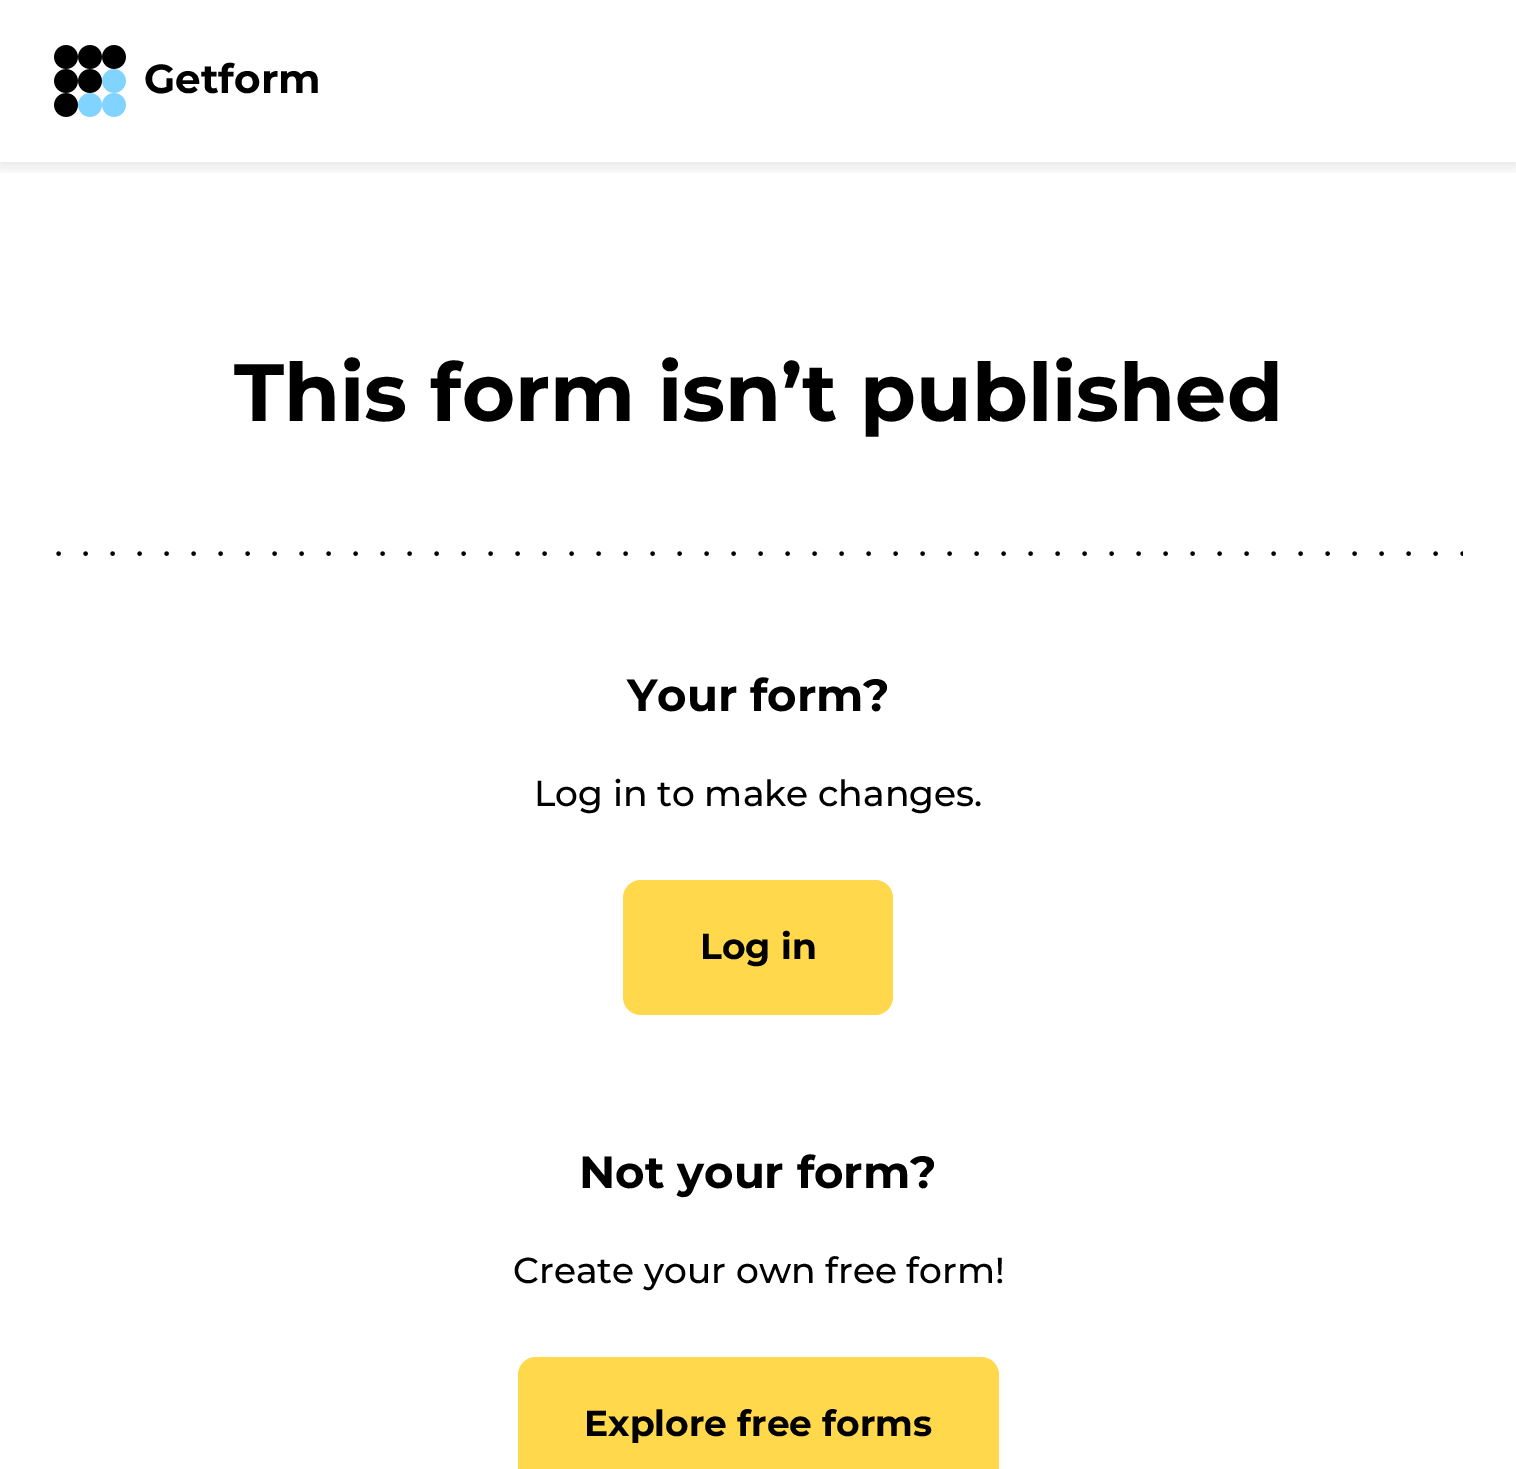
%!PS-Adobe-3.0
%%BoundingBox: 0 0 1516 1469
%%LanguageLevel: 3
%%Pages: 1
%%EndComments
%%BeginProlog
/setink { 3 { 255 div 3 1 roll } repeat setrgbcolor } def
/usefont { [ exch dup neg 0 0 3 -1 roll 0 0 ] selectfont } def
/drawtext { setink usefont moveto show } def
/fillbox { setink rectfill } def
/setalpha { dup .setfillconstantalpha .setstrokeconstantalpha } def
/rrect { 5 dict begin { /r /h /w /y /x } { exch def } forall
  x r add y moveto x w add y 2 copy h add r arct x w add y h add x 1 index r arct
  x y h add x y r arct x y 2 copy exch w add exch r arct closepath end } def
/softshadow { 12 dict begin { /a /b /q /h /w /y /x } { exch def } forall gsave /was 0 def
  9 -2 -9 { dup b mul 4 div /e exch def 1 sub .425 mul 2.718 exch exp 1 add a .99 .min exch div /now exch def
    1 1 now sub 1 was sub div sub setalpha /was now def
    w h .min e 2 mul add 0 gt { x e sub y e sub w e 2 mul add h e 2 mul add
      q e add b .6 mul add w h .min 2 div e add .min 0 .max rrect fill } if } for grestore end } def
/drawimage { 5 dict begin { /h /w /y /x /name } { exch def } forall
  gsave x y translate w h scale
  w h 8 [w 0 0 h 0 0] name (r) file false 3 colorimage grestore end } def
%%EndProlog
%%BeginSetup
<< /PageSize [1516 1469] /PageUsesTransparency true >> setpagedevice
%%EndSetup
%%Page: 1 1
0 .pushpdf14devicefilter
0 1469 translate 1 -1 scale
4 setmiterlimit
0 0 1516 1469 255 255 255 fillbox
gsave
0 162 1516 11 rectclip
0 0 0 setink
0 5 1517 162 0 7 0.1 softshadow
grestore
(assets/img1.rgb) 54 45 72 72 drawimage
(Getform) 144 93 /Montserrat-Bold 40.5 0 0 0 drawtext
(This form isn’t published) 234 421 /Montserrat-Bold 81 0 0 0 drawtext
gsave
54 549 1409 7 rectclip
4.5 setlinewidth
1 setlinecap
[0 27] 0 setdash
58.5 553.5 moveto 1462.5 553.5 lineto stroke
grestore
(Your form?) 627 711 /Montserrat-Bold 45 0 0 0 drawtext
(Log in to make changes.) 534 806 /Montserrat-Medium 36 0 0 0 drawtext
255 216 76 setink
623 880 270 135 18 rrect fill
(Log in) 700 959 /Montserrat-Bold 36 0 0 0 drawtext
(Not your form?) 579 1188 /Montserrat-Bold 45 0 0 0 drawtext
(Create your own free form!) 513 1283 /Montserrat-Medium 36 0 0 0 drawtext
255 216 76 setink
518 1357 481 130 18 rrect fill
(Explore free forms) 584 1436 /Montserrat-Bold 36 0 0 0 drawtext
.poppdf14devicefilter showpage
%%EOF
